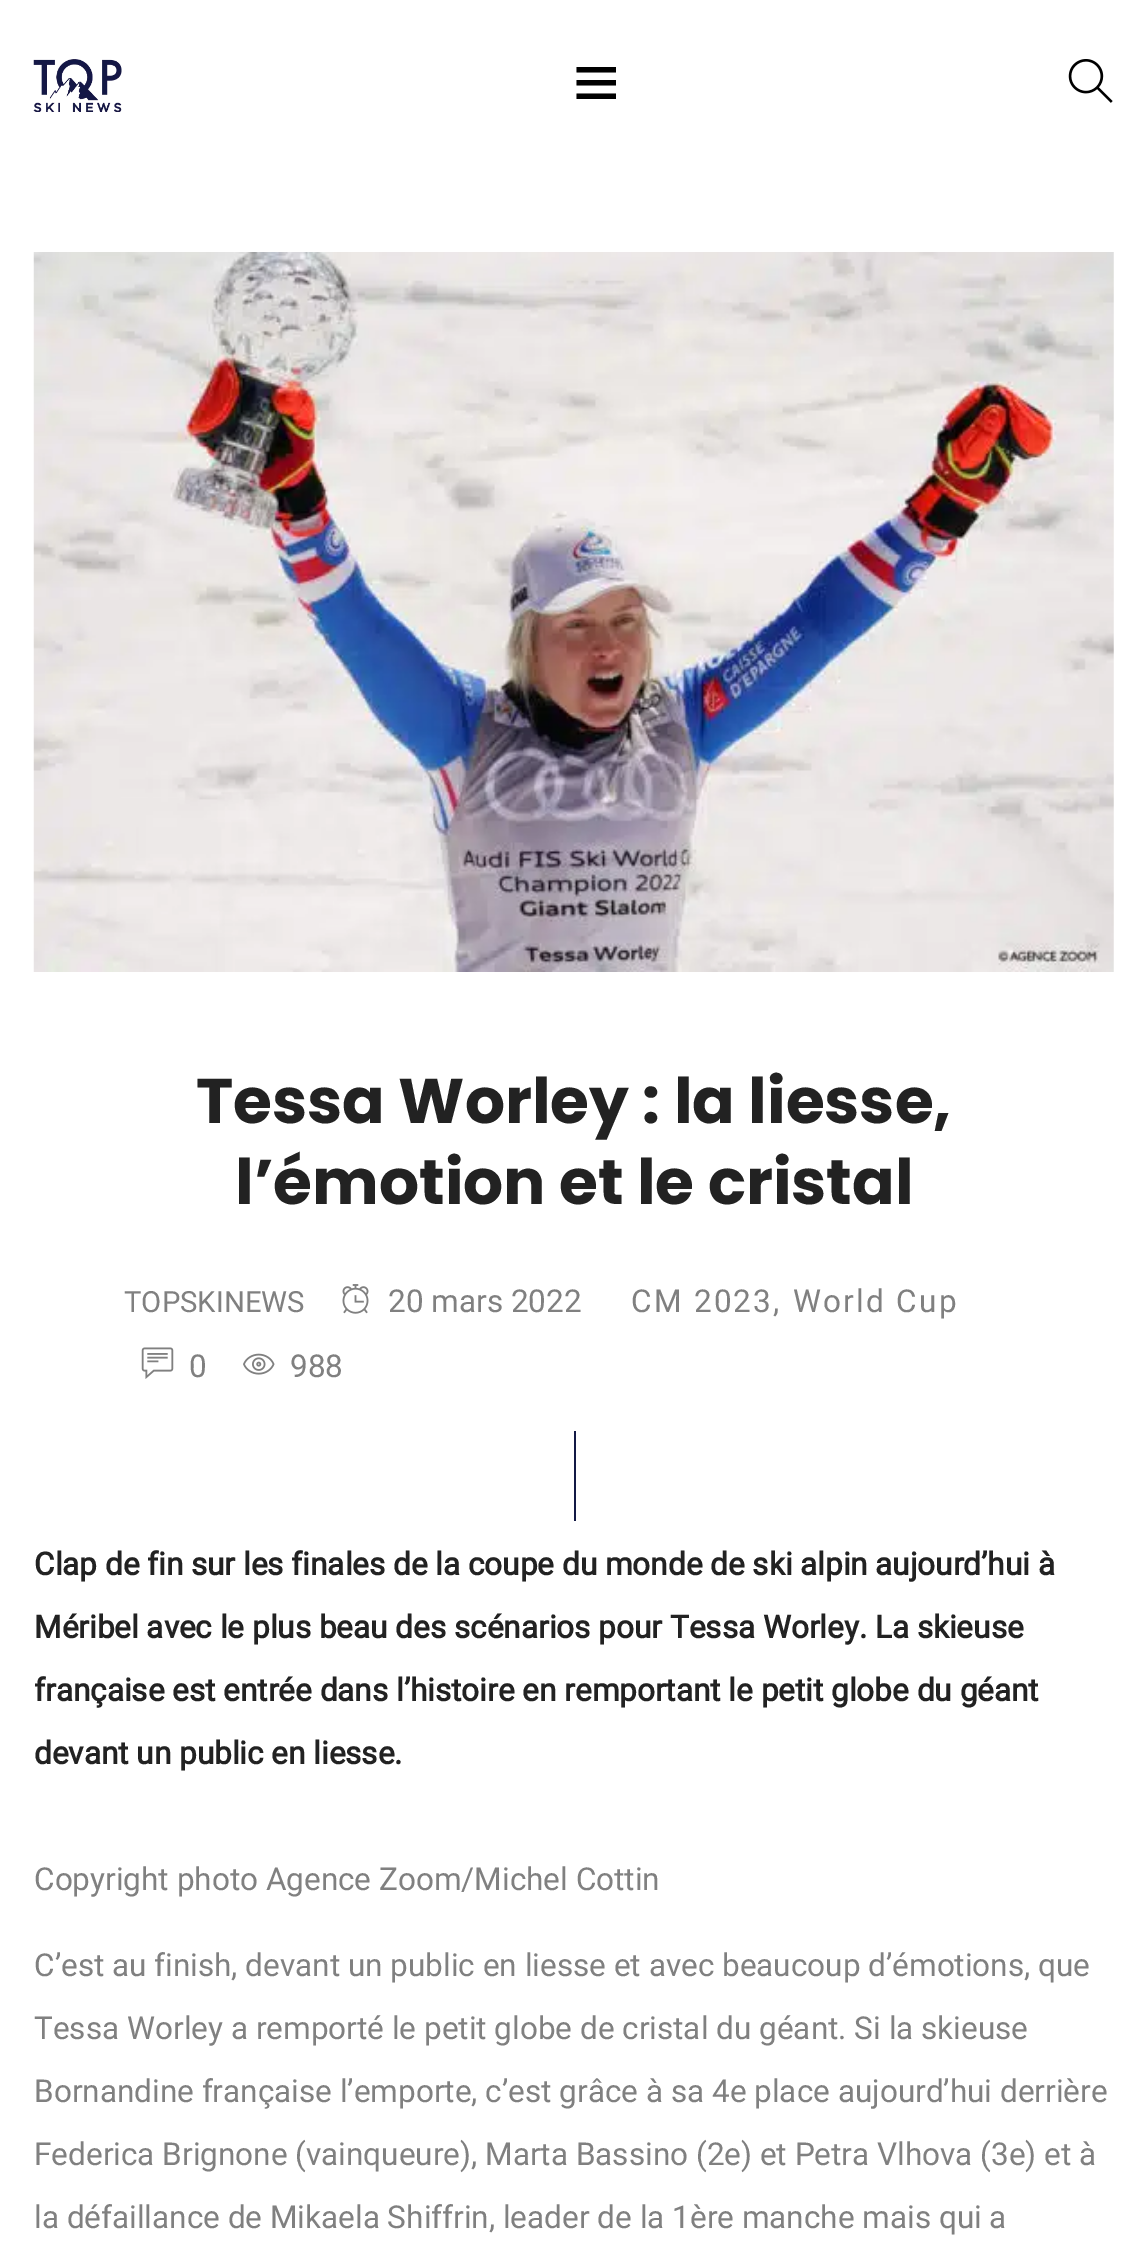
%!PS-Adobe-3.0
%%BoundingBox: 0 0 1146 2262
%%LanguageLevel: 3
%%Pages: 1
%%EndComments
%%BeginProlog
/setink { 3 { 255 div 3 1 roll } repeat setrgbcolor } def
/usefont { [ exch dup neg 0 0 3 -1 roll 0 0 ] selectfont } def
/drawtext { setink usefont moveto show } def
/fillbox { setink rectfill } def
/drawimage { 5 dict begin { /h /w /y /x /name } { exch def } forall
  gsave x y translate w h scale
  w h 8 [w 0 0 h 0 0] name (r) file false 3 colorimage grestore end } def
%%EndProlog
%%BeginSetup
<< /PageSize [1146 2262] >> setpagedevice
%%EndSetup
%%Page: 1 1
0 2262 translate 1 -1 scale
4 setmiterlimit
0 0 1146 2262 255 255 255 fillbox
(assets/img1.rgb) 33 59 89 53 drawimage
0 0 0 setink
616 67 moveto 616 72.5 lineto 576.5 72.5 lineto 576.5 67 lineto closepath 576.5 85.5 moveto 616 85.5 lineto 616 80 lineto 576.5 80 lineto closepath 576.5 99 moveto 616 99 lineto 616 93.5 lineto 576.5 93.5 lineto closepath fill
(assets/img2.rgb) 1068 59 45 44 drawimage
(assets/img3.rgb) 33 252 1081 720 drawimage
(Tessa Worley : la liesse,) 196 1123 /Poppins-Bold 63 34 34 34 drawtext
(l’émotion et le cristal) 235 1204 /Poppins-Bold 63 34 34 34 drawtext
(TOPSKINEWS) 124 1312 /Roboto-Regular 29.25 128 128 128 drawtext
(assets/img4.rgb) 342 1284 27 30 drawimage
(20 mars 2022) 388 1312 /Roboto-Regular 31.5 128 128 128 drawtext
631 1312 moveto 2.25 0 (CM 2023) ashow
(,) 773 1312 /Roboto-Regular 31.5 128 128 128 drawtext
793 1312 moveto 2.25 0 (World Cup) ashow
(assets/img5.rgb) 141 1347 33 32 drawimage
(0) 189 1377 /Roboto-Regular 31.5 128 128 128 drawtext
(assets/img6.rgb) 243 1353 32 22 drawimage
(988) 290 1377 /Roboto-Regular 31.5 128 128 128 drawtext
574 1431 2 90 19 25 69 fillbox
(Clap de fin sur les finales de la coupe du monde de ski alpin aujourd’hui à) 34 1575 /Roboto-Bold 31.5 34 34 34 drawtext
(Méribel avec le plus beau des scénarios pour Tessa Worley. La skieuse) 34 1638 /Roboto-Bold 31.5 34 34 34 drawtext
(française est entrée dans l’histoire en remportant le petit globe du géant) 34 1701 /Roboto-Bold 31.5 34 34 34 drawtext
(devant un public en liesse.) 34 1764 /Roboto-Bold 31.5 34 34 34 drawtext
(Copyright photo Agence Zoom/Michel Cottin) 34 1890 /Roboto-Regular 31.5 128 128 128 drawtext
(C’est au finish, devant un public en liesse et avec beaucoup d’émotions, que) 34 1976 /Roboto-Regular 31.5 128 128 128 drawtext
(Tessa Worley a remporté le petit globe de cristal du géant. Si la skieuse) 34 2039 /Roboto-Regular 31.5 128 128 128 drawtext
(Bornandine française l’emporte, c’est grâce à sa 4e place aujourd’hui derrière) 34 2102 /Roboto-Regular 31.5 128 128 128 drawtext
(Federica Brignone \(vainqueure\), Marta Bassino \(2e\) et Petra Vlhova \(3e\) et à) 34 2165 /Roboto-Regular 31.5 128 128 128 drawtext
(la défaillance de Mikaela Shiffrin, leader de la 1ère manche mais qui a) 34 2228 /Roboto-Regular 31.5 128 128 128 drawtext
showpage
%%EOF
